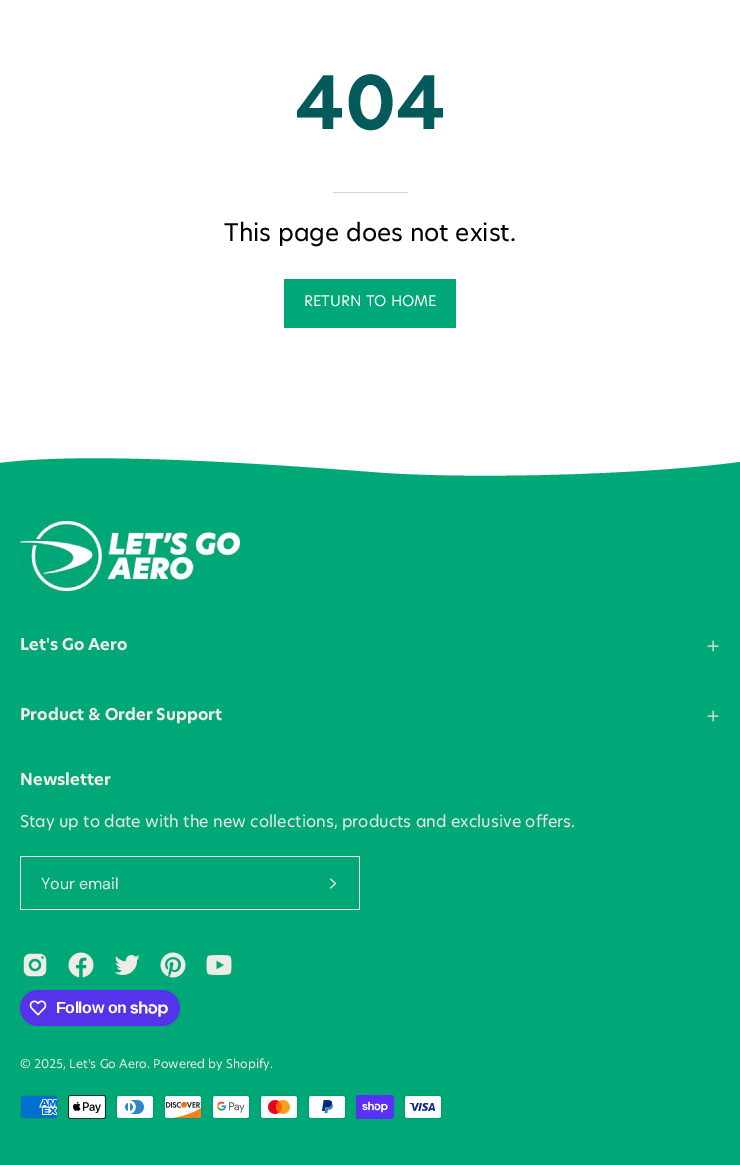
%!PS-Adobe-3.0
%%BoundingBox: 0 0 740 1165
%%LanguageLevel: 3
%%Pages: 1
%%EndComments
%%BeginProlog
/setink { 3 { 255 div 3 1 roll } repeat setrgbcolor } def
/usefont { [ exch dup neg 0 0 3 -1 roll 0 0 ] selectfont } def
/drawtext { setink usefont moveto show } def
/fillbox { setink rectfill } def
/rrect { 5 dict begin { /r /h /w /y /x } { exch def } forall
  x r add y moveto x w add y 2 copy h add r arct x w add y h add x 1 index r arct
  x y h add x y r arct x y 2 copy exch w add exch r arct closepath end } def
/drawimage { 5 dict begin { /h /w /y /x /name } { exch def } forall
  gsave x y translate w h scale
  w h 8 [w 0 0 h 0 0] name (r) file false 3 colorimage grestore end } def
%%EndProlog
%%BeginSetup
<< /PageSize [740 1165] >> setpagedevice
%%EndSetup
%%Page: 1 1
0 1165 translate 1 -1 scale
4 setmiterlimit
0 0 740 1165 255 255 255 fillbox
(404) 295 129 /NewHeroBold-Bold 72 3 90 91 drawtext
333 192 75 1 211 211 211 fillbox
(This page does not exist.) 224 241 /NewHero-Regular 24 0 0 0 drawtext
284 279 172 49 0 167 119 fillbox
(RETURN TO HOME) 304 306 /NewHero-Regular 14.5 255 255 255 drawtext
0 486 740 679 0 167 119 fillbox
0 463 moveto 85 452 254 463 370 472 curveto 465 480 645 475 740 462 curveto 740 486 lineto 0 486 lineto fill
(assets/img1.rgb) 20 521 220 70 drawimage
(Let's Go Aero) 20 650 /NewHeroBold-Bold 16 237 236 230 drawtext
0.9 setlinewidth
1 setlinecap
1 setlinejoin
708 646 moveto 718 646 lineto 713 641 moveto 713 651 lineto stroke
(Product & Order Support) 20 720 /NewHeroBold-Bold 16 237 236 230 drawtext
708 716 moveto 718 716 lineto 713 711 moveto 713 721 lineto stroke
(Newsletter) 20 785 /NewHeroBold-Bold 16 237 236 230 drawtext
(Stay up to date with the new collections, products and exclusive offers.) 20 827 /NewHero-Regular 16 237 236 230 drawtext
20 856 340 1 237 236 230 fillbox
20 909 286 1 237 236 230 fillbox
20 856 1 54 237 236 230 fillbox
(Your email) 41 889 /DMSans-Regular 16 237 236 230 drawtext
359 856 1 54 237 236 230 fillbox
306 909 54 1 237 236 230 fillbox
330.5 879 moveto 335.5 883.5 lineto 330.5 888 lineto stroke
(assets/img2.rgb) 23 953 24 24 drawimage
(assets/img3.rgb) 68 952 26 26 drawimage
(assets/img4.rgb) 114 955 26 20 drawimage
(assets/img5.rgb) 160 952 26 26 drawimage
(assets/img6.rgb) 206 955 26 20 drawimage
84 51 235 setink
20 990 160 36 18 rrect fill
(assets/img7.rgb) 29 1000 18 16 drawimage
/LiberationSans-Bold 16 usefont
255 255 255 setink
56 1013 moveto -0.5 0 (Follow on) ashow
(assets/img8.rgb) 130 1001 38 16 drawimage
(© 2025, Let's Go Aero. Powered by Shopify.) 20 1068 /NewHero-Regular 12 237 236 230 drawtext
(assets/img9.rgb) 20 1095 38 24 drawimage
(assets/img10.rgb) 68 1095 38 24 drawimage
(assets/img11.rgb) 116 1095 38 24 drawimage
(assets/img12.rgb) 164 1095 38 24 drawimage
(assets/img13.rgb) 212 1095 38 24 drawimage
(assets/img14.rgb) 260 1095 38 24 drawimage
(assets/img15.rgb) 308 1095 38 24 drawimage
(assets/img16.rgb) 356 1095 38 24 drawimage
(assets/img17.rgb) 404 1095 38 24 drawimage
showpage
%%EOF
